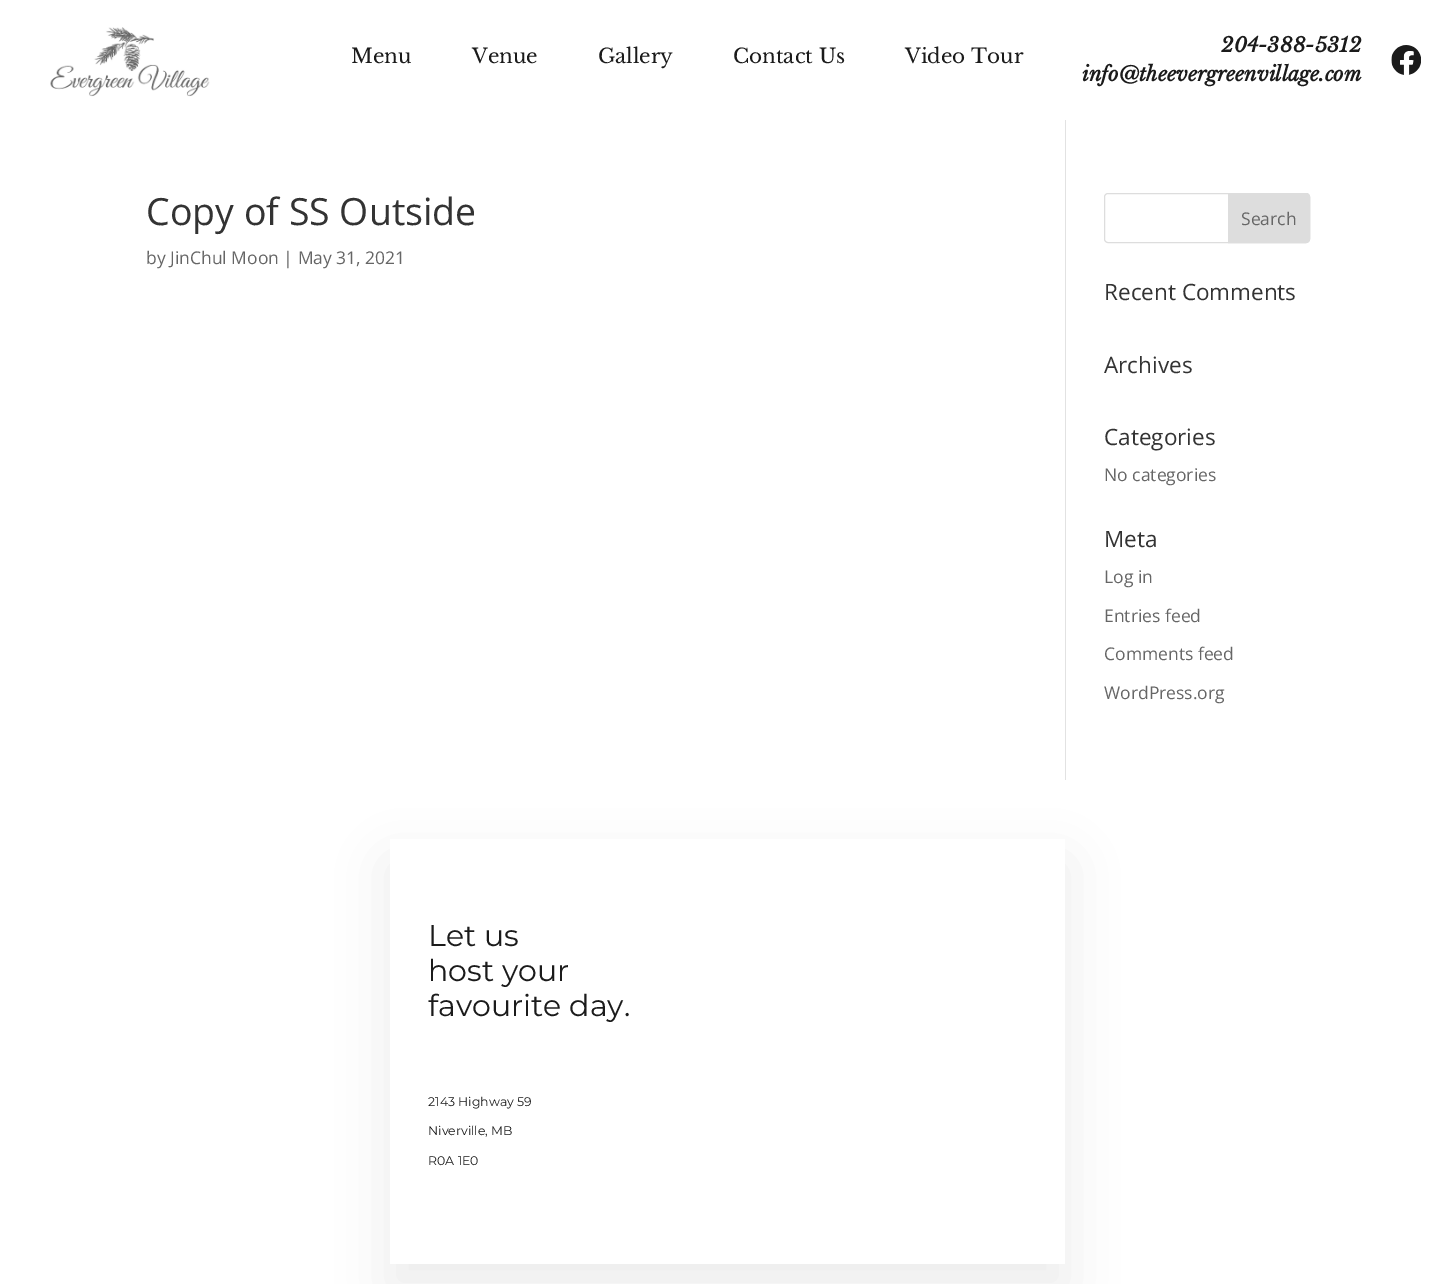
%!PS-Adobe-3.0
%%BoundingBox: 0 0 1455 1284
%%LanguageLevel: 3
%%Pages: 1
%%EndComments
%%BeginProlog
/setink { 3 { 255 div 3 1 roll } repeat setrgbcolor } def
/usefont { [ exch dup neg 0 0 3 -1 roll 0 0 ] selectfont } def
/drawtext { setink usefont moveto show } def
/fillbox { setink rectfill } def
/setalpha { dup .setfillconstantalpha .setstrokeconstantalpha } def
/rrect { 5 dict begin { /r /h /w /y /x } { exch def } forall
  x r add y moveto x w add y 2 copy h add r arct x w add y h add x 1 index r arct
  x y h add x y r arct x y 2 copy exch w add exch r arct closepath end } def
/softshadow { 12 dict begin { /a /b /q /h /w /y /x } { exch def } forall gsave /was 0 def
  9 -2 -9 { dup b mul 4 div /e exch def 1 sub .425 mul 2.718 exch exp 1 add a .99 .min exch div /now exch def
    1 1 now sub 1 was sub div sub setalpha /was now def
    w h .min e 2 mul add 0 gt { x e sub y e sub w e 2 mul add h e 2 mul add
      q e add b .6 mul add w h .min 2 div e add .min 0 .max rrect fill } if } for grestore end } def
/drawimage { 5 dict begin { /h /w /y /x /name } { exch def } forall
  gsave x y translate w h scale
  w h 8 [w 0 0 h 0 0] name (r) file false 3 colorimage grestore end } def
%%EndProlog
%%BeginSetup
<< /PageSize [1455 1284] /PageUsesTransparency true >> setpagedevice
%%EndSetup
%%Page: 1 1
0 .pushpdf14devicefilter
0 1284 translate 1 -1 scale
4 setmiterlimit
0 0 1455 1284 255 255 255 fillbox
(assets/img1.rgb) 50 27 160 70 drawimage
(Menu) 351 63 /LibreBaskerville-Regular 20 27 27 27 drawtext
(Venue) 472 63 /LibreBaskerville-Regular 20 27 27 27 drawtext
(Gallery) 598 63 /LibreBaskerville-Regular 20 27 27 27 drawtext
(Contact Us) 733 63 /LibreBaskerville-Regular 20 27 27 27 drawtext
(Video Tour) 905 63 /LibreBaskerville-Regular 20 27 27 27 drawtext
(204-388-5312) 1221 52 /LibreBaskerville-BoldItalic 20 27 27 27 drawtext
(info@theevergreenvillage.com) 1082 81 /LibreBaskerville-BoldItalic 20 27 27 27 drawtext
(assets/img2.rgb) 1391 45 30 30 drawimage
1065 120 1 660 226 226 226 fillbox
(Copy of SS Outside) 146 225 /OpenSans-Regular 37.5 51 51 51 drawtext
(by JinChul Moon | May 31, 2021) 146 264 /OpenSans-Regular 17.5 102 102 102 drawtext
221 221 221 setink
1104.5 193.5 205 49 3.5 rrect stroke
1228.5 193.5 moveto 1306 193.5 lineto 1308 193.5 1309.5 195 1309.5 197 curveto 1309.5 239 lineto 1309.5 241 1308 242.5 1306 242.5 curveto 1228.5 242.5 lineto closepath gsave fill grestore
stroke
(Search) 1241 225 /OpenSans-Regular 17.5 102 102 102 drawtext
(Recent Comments) 1104 300 /OpenSans-Regular 22.5 51 51 51 drawtext
(Archives) 1104 373 /OpenSans-Regular 22.5 51 51 51 drawtext
(Categories) 1104 445 /OpenSans-Regular 22.5 51 51 51 drawtext
(No categories) 1104 481 /OpenSans-Regular 17.5 102 102 102 drawtext
(Meta) 1104 547 /OpenSans-Regular 22.5 51 51 51 drawtext
(Log in) 1104 583 /OpenSans-Regular 17.5 102 102 102 drawtext
(Entries feed) 1104 622 /OpenSans-Regular 17.5 102 102 102 drawtext
(Comments feed) 1104 660 /OpenSans-Regular 17.5 102 102 102 drawtext
(WordPress.org) 1104 699 /OpenSans-Regular 17.5 102 102 102 drawtext
gsave
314 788 moveto 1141 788 lineto 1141 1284 lineto 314 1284 lineto closepath 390 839 moveto 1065 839 lineto 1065 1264 lineto 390 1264 lineto closepath eoclip newpath
27 27 27 setink
390 864 675 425 0 25 0.08 softshadow
grestore
(Let us) 428 946 /Montserrat-Regular 30 27 27 27 drawtext
(host your) 428 981 /Montserrat-Regular 30 27 27 27 drawtext
(favourite day.) 428 1016 /Montserrat-Regular 30 27 27 27 drawtext
(2143 Highway 59) 428 1106 /Montserrat-Regular 12.5 27 27 27 drawtext
(Niverville, MB) 428 1135 /Montserrat-Regular 12.5 27 27 27 drawtext
(R0A 1E0) 428 1165 /Montserrat-Regular 12.5 27 27 27 drawtext
.poppdf14devicefilter showpage
%%EOF
